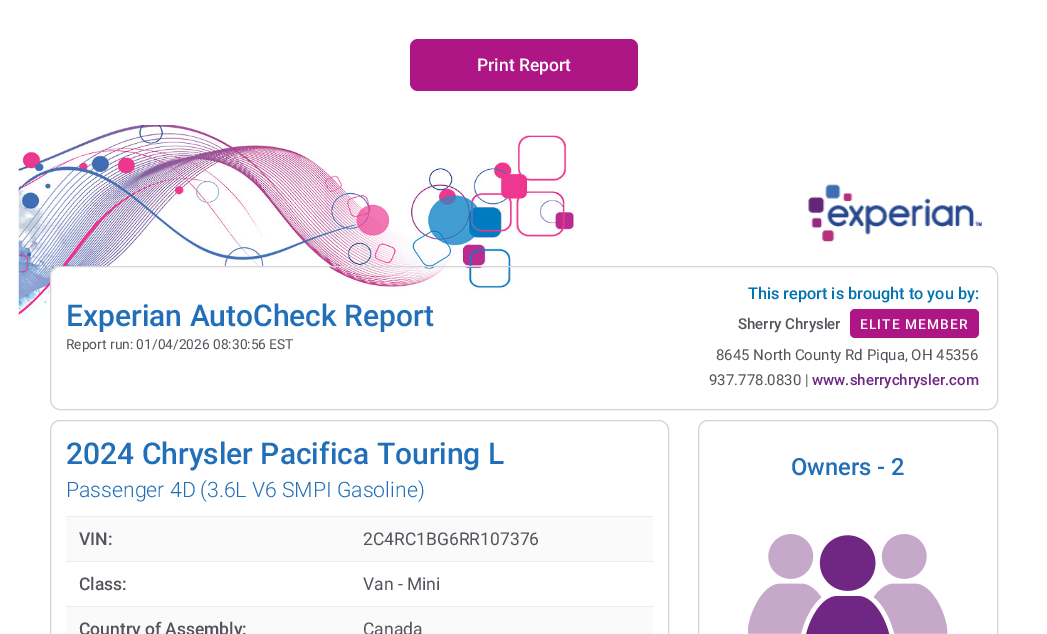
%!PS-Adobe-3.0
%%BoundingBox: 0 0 1047 634
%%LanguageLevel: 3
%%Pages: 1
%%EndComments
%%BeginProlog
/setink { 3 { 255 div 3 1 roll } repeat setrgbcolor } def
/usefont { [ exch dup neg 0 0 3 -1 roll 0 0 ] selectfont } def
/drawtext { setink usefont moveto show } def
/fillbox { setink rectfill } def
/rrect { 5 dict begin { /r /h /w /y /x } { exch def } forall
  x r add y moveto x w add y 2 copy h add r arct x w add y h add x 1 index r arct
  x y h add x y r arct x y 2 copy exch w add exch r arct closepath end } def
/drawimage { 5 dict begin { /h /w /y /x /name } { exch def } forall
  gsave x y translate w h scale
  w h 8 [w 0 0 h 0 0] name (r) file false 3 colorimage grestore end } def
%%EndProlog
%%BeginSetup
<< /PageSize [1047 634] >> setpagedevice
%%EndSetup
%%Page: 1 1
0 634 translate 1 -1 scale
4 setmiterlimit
0 0 1047 634 255 255 255 fillbox
175 22 133 setink
410 39 228 52 8 rrect fill
(Print Report) 477 71 /Roboto-Medium 17.5 255 255 255 drawtext
(assets/img1.rgb) 18 125 558 198 drawimage
(assets/img2.rgb) 808 184 174 58 drawimage
50 266 948 144 10 rrect fill
(assets/img3.rgb) 324 267 190 23 drawimage
212 212 212 setink
50.5 266.5 947 143 9.5 rrect stroke
(Experian AutoCheck Report) 66 326 /Roboto-Medium 30 33 111 184 drawtext
(Report run: 01/04/2026 08:30:56 EST) 66 349 /Roboto-Regular 13.75 82 85 91 drawtext
(This report is brought to you by:) 748 299 /Roboto-Medium 16.25 0 115 178 drawtext
(Sherry Chrysler) 738 329 /Roboto-Medium 15 82 85 91 drawtext
175 22 133 setink
850 309 129 29 5 rrect fill
/Roboto-Medium 13.75 usefont
255 255 255 setink
860 329 moveto 1.1 0 (ELITE MEMBER) ashow
(8645 North County Rd Piqua, OH 45356) 716 360 /Roboto-Regular 15 82 85 91 drawtext
(937.778.0830 |) 709 385 /Roboto-Regular 15 82 85 91 drawtext
(www.sherrychrysler.com) 812 385 /Roboto-Medium 15 112 39 132 drawtext
212 212 212 setink
50.5 420.5 618 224 9.5 rrect stroke
(2024 Chrysler Pacifica Touring L) 66 464 /Roboto-Medium 30 33 111 184 drawtext
(Passenger 4D) 66 497 /Roboto-Light 21.25 33 111 184 drawtext
(\(3.6L V6 SMPI Gasoline\)) 200 497 /Roboto-Light 21.25 33 111 184 drawtext
66 517 587 44 250 250 250 fillbox
66 516 587 1 235 235 235 fillbox
(VIN:) 79 545 /Roboto-Medium 17.5 82 85 91 drawtext
(2C4RC1BG6RR107376) 363 545 /Roboto-Regular 17.5 82 85 91 drawtext
66 561 587 1 235 235 235 fillbox
(Class:) 79 590 /Roboto-Medium 17.5 82 85 91 drawtext
(Van - Mini) 363 590 /Roboto-Regular 17.5 82 85 91 drawtext
66 607 587 27 250 250 250 fillbox
66 606 587 1 235 235 235 fillbox
(Country of Assembly:) 79 635 /Roboto-Medium 17.5 82 85 91 drawtext
(Canada) 363 635 /Roboto-Regular 17.5 82 85 91 drawtext
212 212 212 setink
698.5 420.5 299 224 9.5 rrect stroke
(Owners - 2) 791 475 /Roboto-Medium 23.75 33 111 184 drawtext
(assets/img4.rgb) 748 534 200 100 drawimage
showpage
%%EOF
